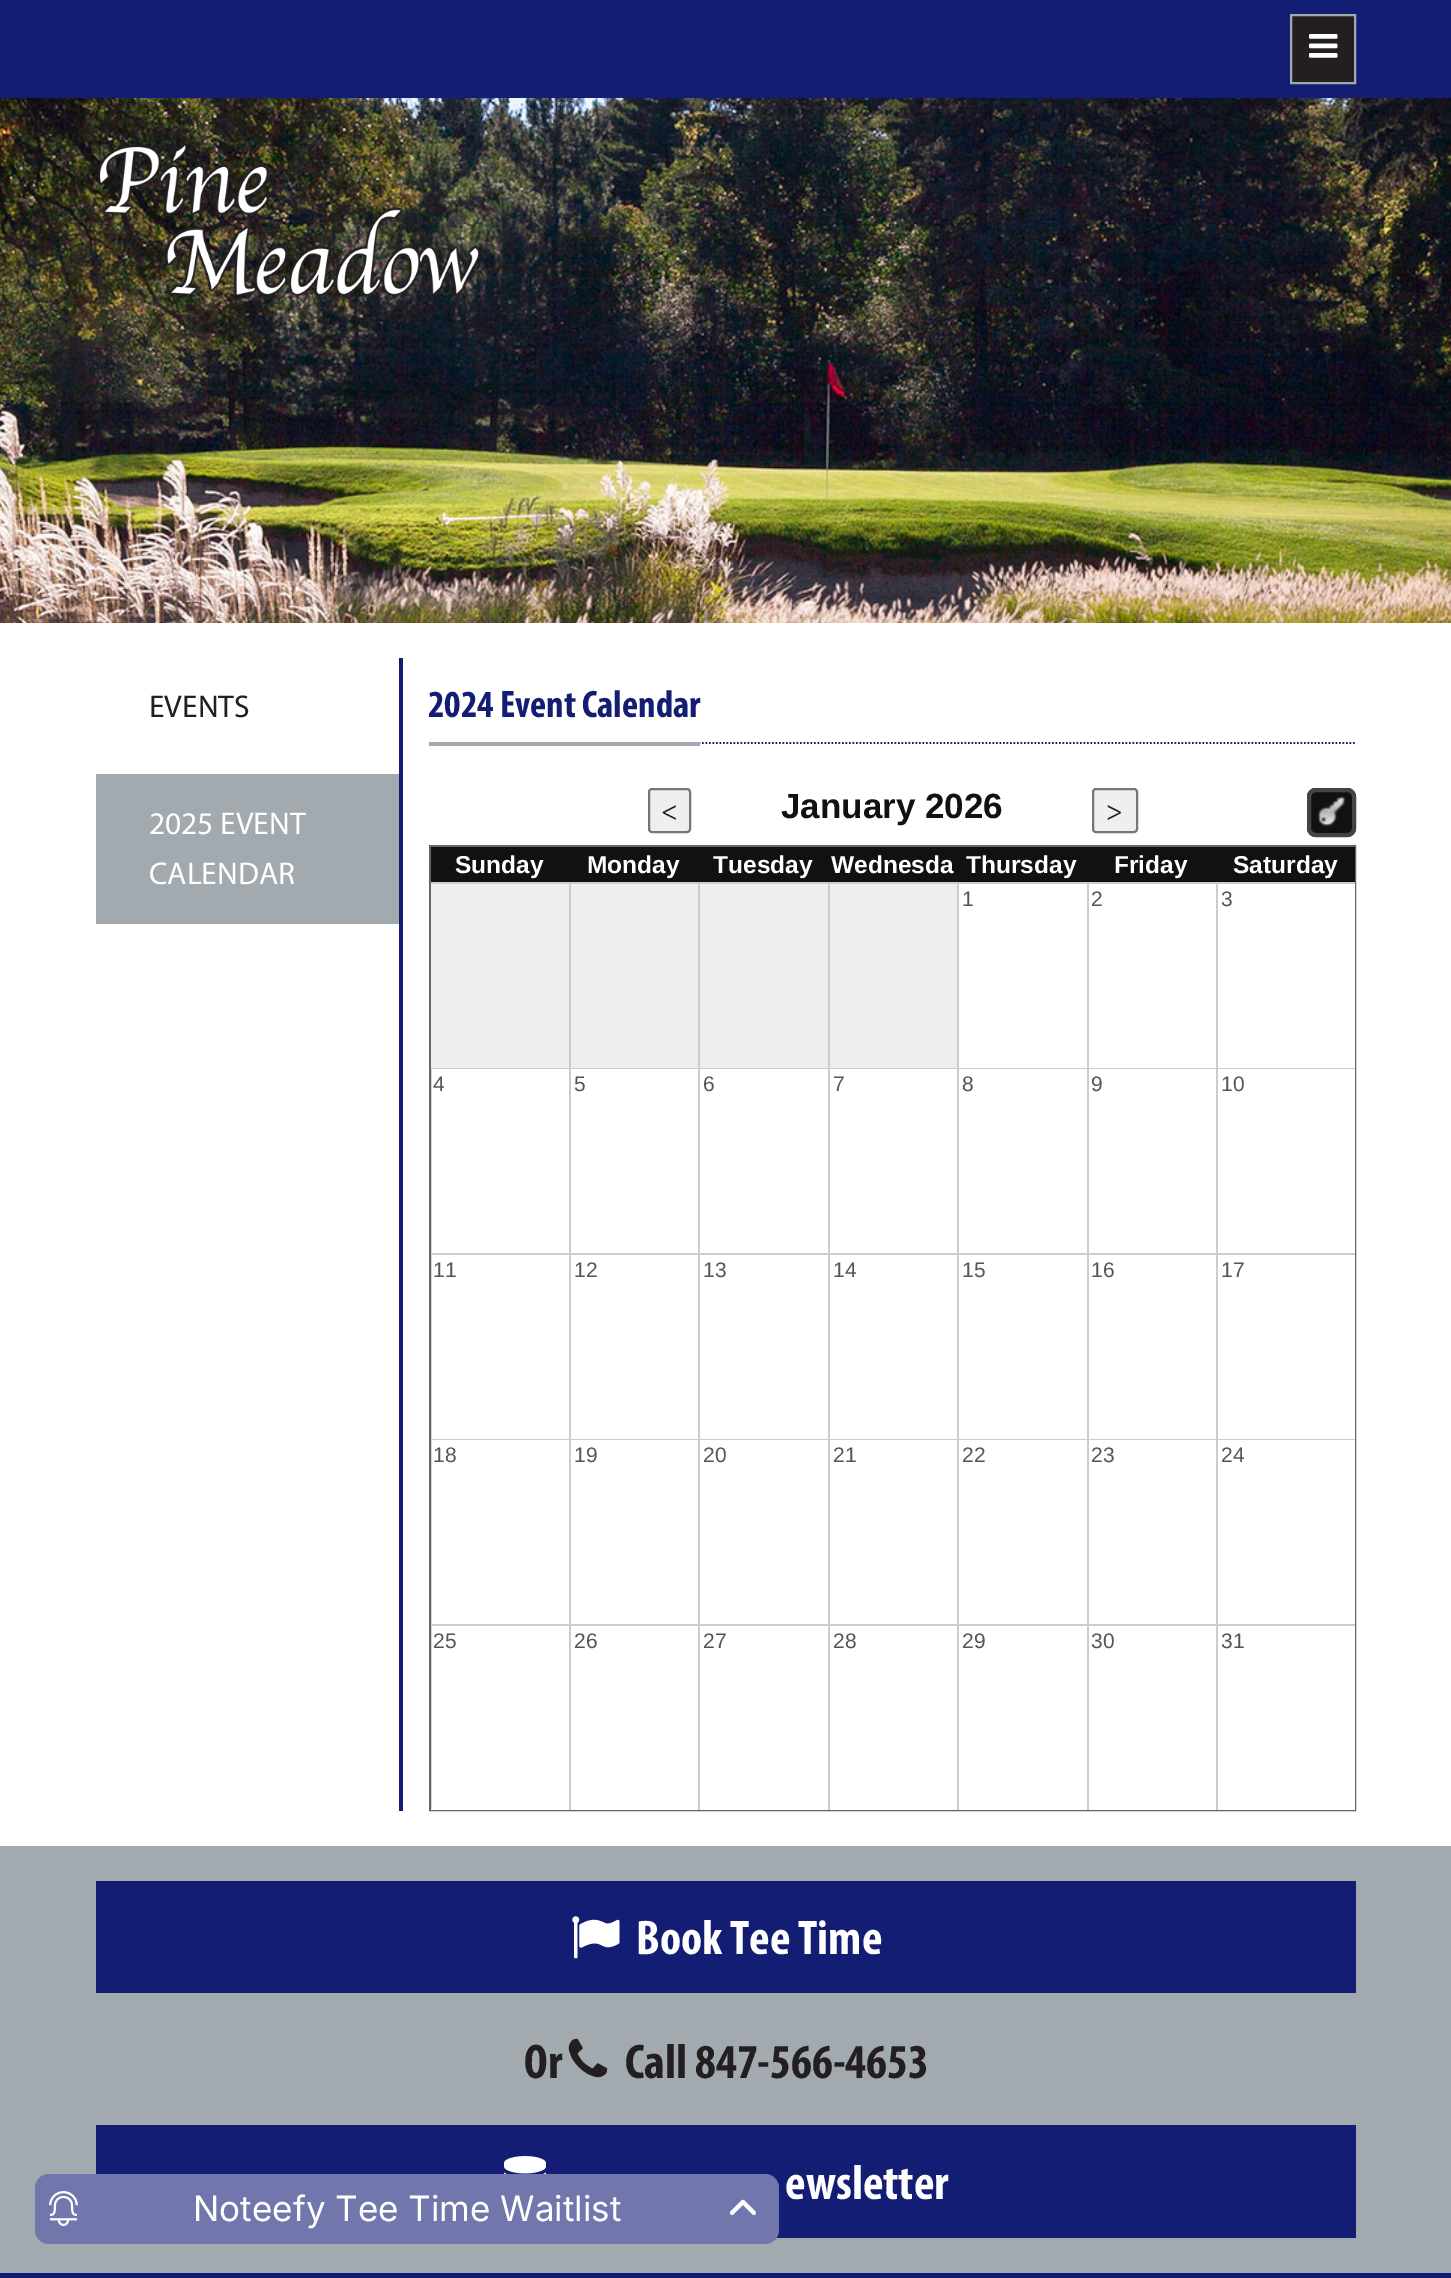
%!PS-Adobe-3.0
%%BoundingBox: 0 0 1451 2278
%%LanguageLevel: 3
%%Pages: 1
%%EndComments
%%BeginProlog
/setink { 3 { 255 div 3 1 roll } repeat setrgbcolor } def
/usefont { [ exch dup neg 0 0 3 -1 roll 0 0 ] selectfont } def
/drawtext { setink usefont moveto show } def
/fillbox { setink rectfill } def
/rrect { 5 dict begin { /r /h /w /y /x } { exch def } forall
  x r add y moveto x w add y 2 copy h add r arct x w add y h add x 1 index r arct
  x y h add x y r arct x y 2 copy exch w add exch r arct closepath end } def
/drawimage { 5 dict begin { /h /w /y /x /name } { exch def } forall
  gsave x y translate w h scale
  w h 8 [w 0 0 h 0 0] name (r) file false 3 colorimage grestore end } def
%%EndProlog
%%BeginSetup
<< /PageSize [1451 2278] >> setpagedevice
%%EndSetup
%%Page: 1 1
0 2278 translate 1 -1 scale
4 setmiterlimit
0 0 1451 2278 255 255 255 fillbox
0 0 1451 98 19 29 116 fillbox
35 31 32 setink
1291 15 moveto 1355 15 lineto 1355 83 lineto 1291 83 lineto closepath gsave fill grestore
162 169 175 setink
2 setlinewidth
stroke
(assets/img1.rgb) 1309 34 29 24 drawimage
(assets/img2.rgb) 0 98 1451 525 drawimage
(assets/img3.rgb) 97 144 384 153 drawimage
(EVENTS) 149 717 /Myriad-Regular 31.5 35 31 32 drawtext
96 774 303 150 162 169 175 fillbox
(2025 EVENT) 149 834 /Myriad-Regular 31.5 255 255 255 drawtext
(CALENDAR) 149 884 /Myriad-Regular 31.5 255 255 255 drawtext
399 658 4 1153 19 29 116 fillbox
1.8 setlinewidth
[1.75 1.75] 0 setdash
429 743 moveto 1356 743 lineto stroke
429 742 271 4 162 169 175 fillbox
(2024 Event Calendar) 428 717 /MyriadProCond-Bold 38.5 19 29 116 drawtext
239 239 239 setink
649 789 41 43 3 rrect gsave fill grestore
118 118 118 setink
2 setlinewidth
[] 0 setdash
stroke
(<) 661 820 /Myriad-Regular 28 35 31 32 drawtext
(January 2026) 781 818 /LiberationSans-Bold 35 17 17 17 drawtext
239 239 239 setink
1093 789 44 43 3 rrect gsave fill grestore
118 118 118 setink
stroke
(>) 1106 820 /Myriad-Regular 28 35 31 32 drawtext
17 17 17 setink
1307 788 49 49 9 rrect fill
(assets/img4.rgb) 1317 796 29 31 drawimage
68 68 68 setink
4 setlinewidth
1309 790 45 45 7 rrect stroke
102 102 102 setink
2 setlinewidth
430 846 925 964 rectstroke
431 847 924 35 17 17 17 fillbox
430 865 1 17 97 97 97 fillbox
(Sunday) 455 873 /LiberationSans-Bold 24.5 255 255 255 drawtext
(Monday) 587 873 /LiberationSans-Bold 24.5 255 255 255 drawtext
(Tuesday) 713 873 /LiberationSans-Bold 24.5 255 255 255 drawtext
(Wednesda) 831 873 /LiberationSans-Bold 24.5 255 255 255 drawtext
(Thursday) 966 873 /LiberationSans-Bold 24.5 255 255 255 drawtext
(Friday) 1114 873 /LiberationSans-Bold 24.5 255 255 255 drawtext
(Saturday) 1233 873 /LiberationSans-Bold 24.5 255 255 255 drawtext
431 882 924 2 204 204 204 fillbox
431 884 138 184 238 238 238 fillbox
571 884 127 184 238 238 238 fillbox
569 884 2 184 204 204 204 fillbox
700 884 128 184 238 238 238 fillbox
698 884 2 184 204 204 204 fillbox
830 884 127 184 238 238 238 fillbox
828 884 2 184 204 204 204 fillbox
957 884 2 184 204 204 204 fillbox
(1) 962 906 /LiberationSans-Regular 21 85 85 85 drawtext
1087 884 2 184 204 204 204 fillbox
(2) 1091 906 /LiberationSans-Regular 21 85 85 85 drawtext
1354 884 1 184 255 255 255 fillbox
1216 884 2 184 204 204 204 fillbox
(3) 1221 906 /LiberationSans-Regular 21 85 85 85 drawtext
431 1068 924 1 204 204 204 fillbox
(4) 433 1091 /LiberationSans-Regular 21 85 85 85 drawtext
569 1069 2 184 204 204 204 fillbox
(5) 574 1091 /LiberationSans-Regular 21 85 85 85 drawtext
698 1069 2 184 204 204 204 fillbox
(6) 703 1091 /LiberationSans-Regular 21 85 85 85 drawtext
828 1069 2 184 204 204 204 fillbox
(7) 833 1091 /LiberationSans-Regular 21 85 85 85 drawtext
957 1069 2 184 204 204 204 fillbox
(8) 962 1091 /LiberationSans-Regular 21 85 85 85 drawtext
1087 1069 2 184 204 204 204 fillbox
(9) 1091 1091 /LiberationSans-Regular 21 85 85 85 drawtext
1354 1069 1 184 255 255 255 fillbox
1216 1069 2 184 204 204 204 fillbox
(10) 1221 1091 /LiberationSans-Regular 21 85 85 85 drawtext
431 1253 924 2 204 204 204 fillbox
(11) 433 1277 /LiberationSans-Regular 21 85 85 85 drawtext
569 1255 2 184 204 204 204 fillbox
(12) 574 1277 /LiberationSans-Regular 21 85 85 85 drawtext
698 1255 2 184 204 204 204 fillbox
(13) 703 1277 /LiberationSans-Regular 21 85 85 85 drawtext
828 1255 2 184 204 204 204 fillbox
(14) 833 1277 /LiberationSans-Regular 21 85 85 85 drawtext
957 1255 2 184 204 204 204 fillbox
(15) 962 1277 /LiberationSans-Regular 21 85 85 85 drawtext
1087 1255 2 184 204 204 204 fillbox
(16) 1091 1277 /LiberationSans-Regular 21 85 85 85 drawtext
1354 1255 1 184 255 255 255 fillbox
1216 1255 2 184 204 204 204 fillbox
(17) 1221 1277 /LiberationSans-Regular 21 85 85 85 drawtext
431 1439 924 1 204 204 204 fillbox
(18) 433 1462 /LiberationSans-Regular 21 85 85 85 drawtext
569 1440 2 184 204 204 204 fillbox
(19) 574 1462 /LiberationSans-Regular 21 85 85 85 drawtext
698 1440 2 184 204 204 204 fillbox
(20) 703 1462 /LiberationSans-Regular 21 85 85 85 drawtext
828 1440 2 184 204 204 204 fillbox
(21) 833 1462 /LiberationSans-Regular 21 85 85 85 drawtext
957 1440 2 184 204 204 204 fillbox
(22) 962 1462 /LiberationSans-Regular 21 85 85 85 drawtext
1087 1440 2 184 204 204 204 fillbox
(23) 1091 1462 /LiberationSans-Regular 21 85 85 85 drawtext
1354 1440 1 184 255 255 255 fillbox
1216 1440 2 184 204 204 204 fillbox
(24) 1221 1462 /LiberationSans-Regular 21 85 85 85 drawtext
431 1624 924 2 204 204 204 fillbox
431 1809 138 1 255 255 255 fillbox
(25) 433 1648 /LiberationSans-Regular 21 85 85 85 drawtext
571 1809 127 1 255 255 255 fillbox
569 1626 2 184 204 204 204 fillbox
(26) 574 1648 /LiberationSans-Regular 21 85 85 85 drawtext
700 1809 128 1 255 255 255 fillbox
698 1626 2 184 204 204 204 fillbox
(27) 703 1648 /LiberationSans-Regular 21 85 85 85 drawtext
830 1809 127 1 255 255 255 fillbox
828 1626 2 184 204 204 204 fillbox
(28) 833 1648 /LiberationSans-Regular 21 85 85 85 drawtext
959 1809 128 1 255 255 255 fillbox
957 1626 2 184 204 204 204 fillbox
(29) 962 1648 /LiberationSans-Regular 21 85 85 85 drawtext
1089 1809 127 1 255 255 255 fillbox
1087 1626 2 184 204 204 204 fillbox
(30) 1091 1648 /LiberationSans-Regular 21 85 85 85 drawtext
1218 1626 137 184 255 255 255 fillbox
1216 1626 2 184 204 204 204 fillbox
(31) 1221 1648 /LiberationSans-Regular 21 85 85 85 drawtext
0 1846 1451 427 162 169 175 fillbox
96 1881 1260 112 19 29 116 fillbox
(assets/img5.rgb) 572 1916 48 43 drawimage
(Book Tee Time) 636 1954 /MyriadProCond-Bold 49 255 255 255 drawtext
(Or) 524 2078 /MyriadProCond-Bold 49 35 31 32 drawtext
(assets/img6.rgb) 568 2038 40 40 drawimage
(Call 847-566-4653) 625 2078 /MyriadProCond-Bold 49 35 31 32 drawtext
96 2125 1260 113 19 29 116 fillbox
(assets/img7.rgb) 504 2156 42 18 drawimage
(ewsletter) 785 2199 /MyriadProCond-Bold 49 255 255 255 drawtext
0 2273 1451 5 19 29 116 fillbox
113 119 172 setink
35 2174 744 70 14 rrect fill
(assets/img8.rgb) 49 2191 29 35 drawimage
(Noteefy Tee Time Waitlist) 193 2221 /Inter-Regular 35 255 255 255 drawtext
(assets/img9.rgb) 730 2199 26 16 drawimage
showpage
%%EOF
